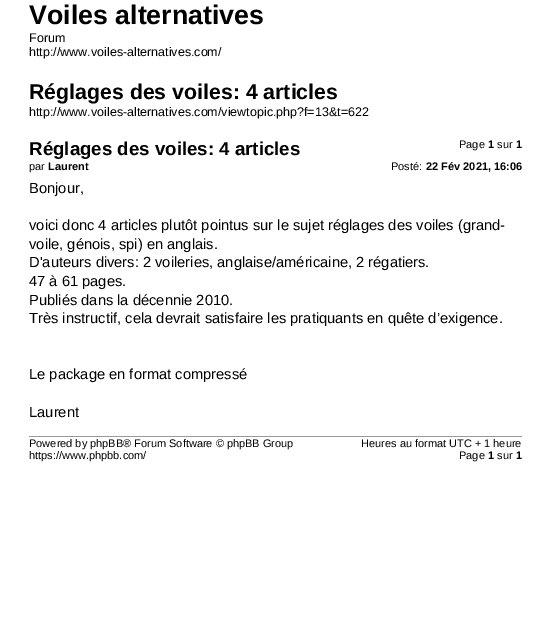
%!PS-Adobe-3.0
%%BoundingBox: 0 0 551 626
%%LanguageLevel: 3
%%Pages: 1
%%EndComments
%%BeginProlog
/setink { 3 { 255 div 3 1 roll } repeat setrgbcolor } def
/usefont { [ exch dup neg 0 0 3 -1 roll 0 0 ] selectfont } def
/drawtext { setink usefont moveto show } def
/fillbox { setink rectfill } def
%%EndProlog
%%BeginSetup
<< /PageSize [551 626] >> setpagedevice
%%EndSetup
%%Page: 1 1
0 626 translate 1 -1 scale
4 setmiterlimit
0 0 551 626 255 255 255 fillbox
(Voiles alternatives) 29 24 /LiberationSans-Bold 26.75 0 0 0 drawtext
(Forum) 29 42 /LiberationSans-Regular 12.5 0 0 0 drawtext
(http://www.voiles-alternatives.com/) 29 56 /LiberationSans-Regular 12.5 0 0 0 drawtext
(Réglages des voiles: 4 articles) 29 99 /LiberationSans-Bold 21.3 0 0 0 drawtext
(http://www.voiles-alternatives.com/viewtopic.php?f=13&t=622) 29 116 /LiberationSans-Regular 12.5 0 0 0 drawtext
(Page) 459 148 /LiberationSans-Regular 11 0 0 0 drawtext
(1) 488 148 /LiberationSans-Bold 11 0 0 0 drawtext
(sur) 497 148 /LiberationSans-Regular 11 0 0 0 drawtext
(1) 516 148 /LiberationSans-Bold 11 0 0 0 drawtext
(Réglages des voiles: 4 articles) 29 155 /LiberationSans-Bold 18.7 0 0 0 drawtext
(par) 29 170 /LiberationSans-Regular 11 0 0 0 drawtext
(Laurent) 48 170 /LiberationSans-Bold 11 0 0 0 drawtext
(Posté:) 391 170 /LiberationSans-Regular 11 0 0 0 drawtext
(22 Fév 2021, 16:06) 426 170 /LiberationSans-Bold 11 0 0 0 drawtext
(Bonjour,) 29 193 /LiberationSans-Regular 14.7 0 0 0 drawtext
(voici donc 4 articles plutôt pointus sur le sujet réglages des voiles \(grand-) 29 230 /LiberationSans-Regular 14.7 0 0 0 drawtext
(voile, génois, spi\) en anglais.) 29 249 /LiberationSans-Regular 14.7 0 0 0 drawtext
(D'auteurs divers: 2 voileries, anglaise/américaine, 2 régatiers.) 29 267 /LiberationSans-Regular 14.7 0 0 0 drawtext
(47 à 61 pages.) 29 286 /LiberationSans-Regular 14.7 0 0 0 drawtext
(Publiés dans la décennie 2010.) 29 305 /LiberationSans-Regular 14.7 0 0 0 drawtext
(Très instructif, cela devrait satisfaire les pratiquants en quête d’exigence.) 29 323 /LiberationSans-Regular 14.7 0 0 0 drawtext
(Le package en format compressé) 29 379 /LiberationSans-Regular 14.7 0 0 0 drawtext
(Laurent) 29 417 /LiberationSans-Regular 14.7 0 0 0 drawtext
29 436 493 1 153 153 153 fillbox
(Powered by phpBB® Forum Software © phpBB Group) 29 447 /LiberationSans-Regular 11 0 0 0 drawtext
(https://www.phpbb.com/) 29 459 /LiberationSans-Regular 11 0 0 0 drawtext
(Heures au format UTC + 1 heure) 361 447 /LiberationSans-Regular 11 0 0 0 drawtext
(Page) 459 459 /LiberationSans-Regular 11 0 0 0 drawtext
(1) 488 459 /LiberationSans-Bold 11 0 0 0 drawtext
(sur) 497 459 /LiberationSans-Regular 11 0 0 0 drawtext
(1) 516 459 /LiberationSans-Bold 11 0 0 0 drawtext
showpage
%%EOF
